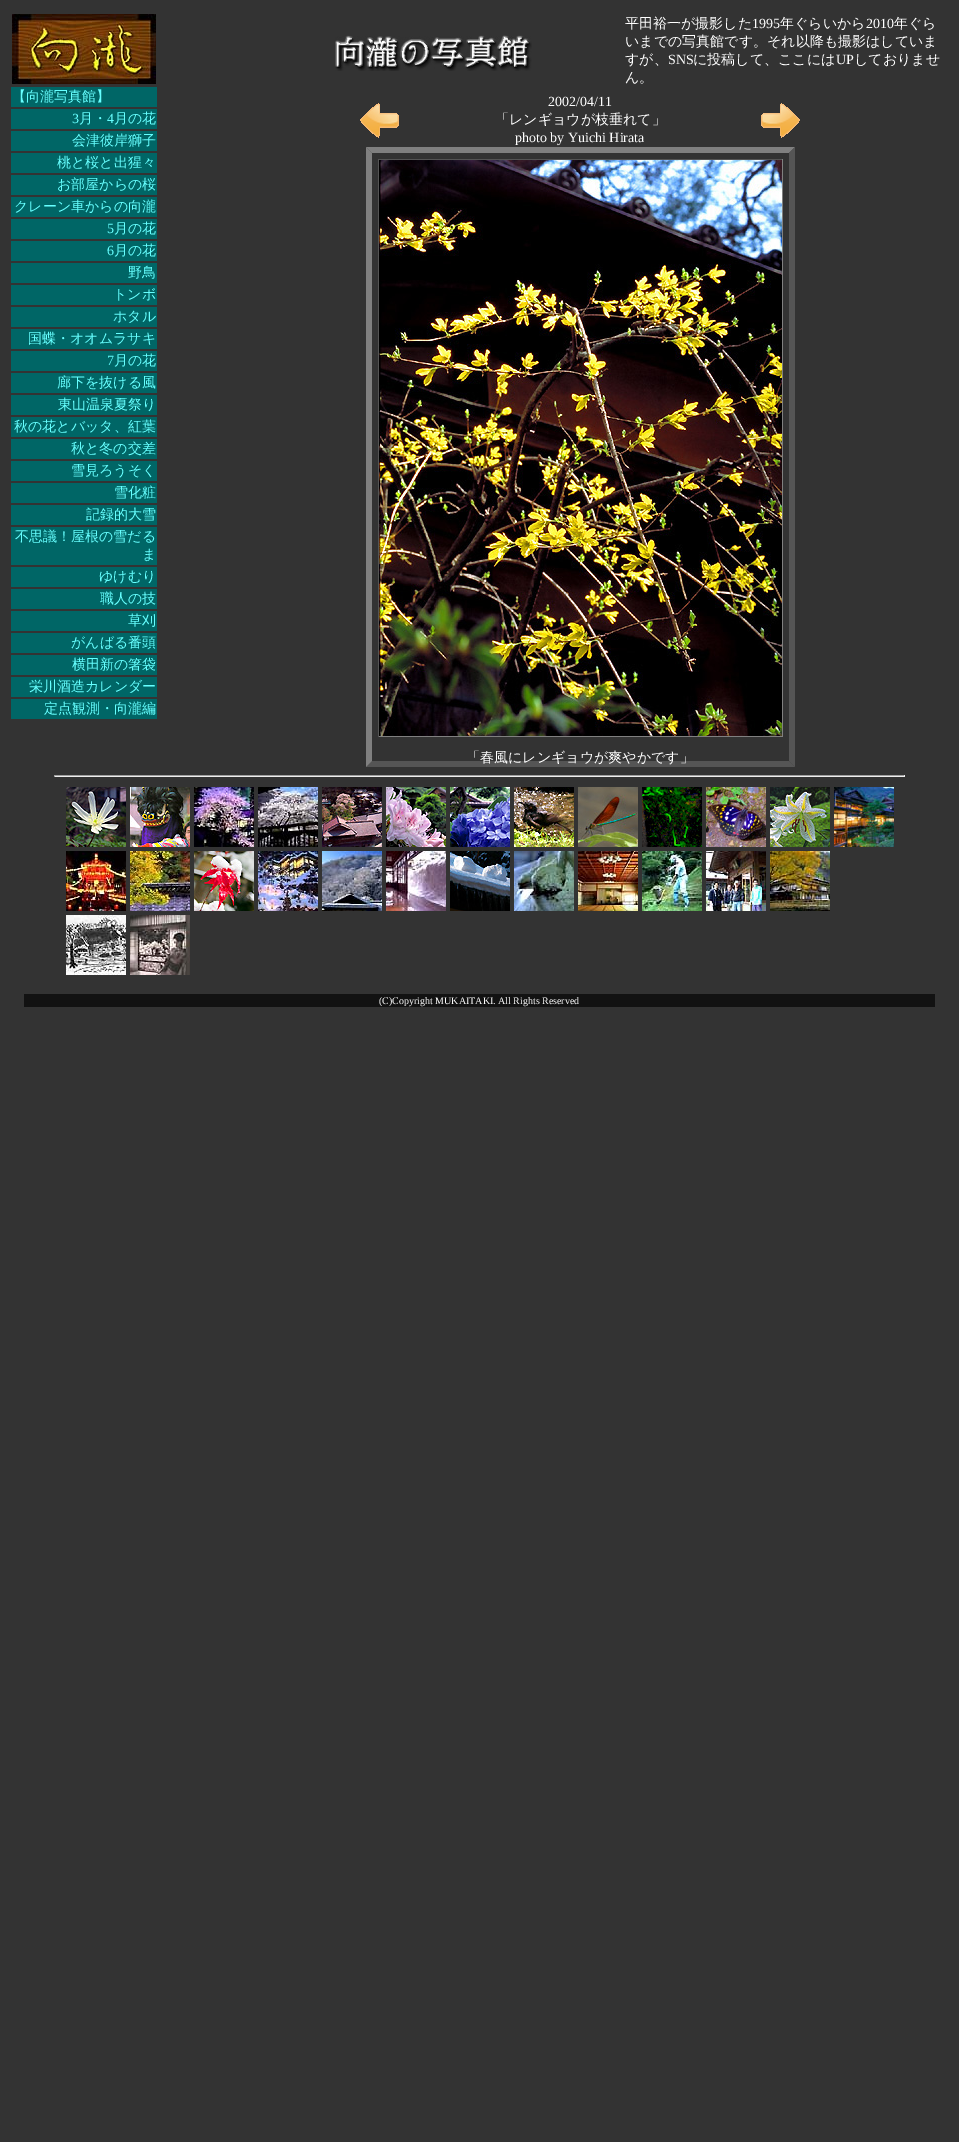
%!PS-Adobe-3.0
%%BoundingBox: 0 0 959 2142
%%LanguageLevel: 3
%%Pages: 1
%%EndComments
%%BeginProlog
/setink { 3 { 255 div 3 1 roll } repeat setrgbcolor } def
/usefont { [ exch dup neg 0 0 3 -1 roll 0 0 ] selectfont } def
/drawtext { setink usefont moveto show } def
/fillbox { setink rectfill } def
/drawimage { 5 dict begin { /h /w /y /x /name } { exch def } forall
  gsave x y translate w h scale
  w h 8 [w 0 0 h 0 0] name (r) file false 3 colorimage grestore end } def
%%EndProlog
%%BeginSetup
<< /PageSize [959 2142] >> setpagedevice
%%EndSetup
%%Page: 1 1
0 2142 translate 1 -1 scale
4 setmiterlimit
0 0 959 2142 51 51 51 fillbox
(assets/img1.rgb) 12 14 144 70 drawimage
11 87 146 20 0 102 102 fillbox
(【向瀧写真館】) 12 101 /WenQuanYiZenHei-Medium 14 102 255 255 drawtext
11 109 146 20 0 102 102 fillbox
(3) 72 123 /LiberationSerif-Regular 14 102 255 255 drawtext
(月・) 79 123 /WenQuanYiZenHei-Medium 14 102 255 255 drawtext
(4) 107 123 /LiberationSerif-Regular 14 102 255 255 drawtext
(月の花) 114 123 /WenQuanYiZenHei-Medium 14 102 255 255 drawtext
11 131 146 20 0 102 102 fillbox
(会津彼岸獅子) 72 145 /WenQuanYiZenHei-Medium 14 102 255 255 drawtext
11 153 146 20 0 102 102 fillbox
(桃と桜と出猩々) 57 167 /WenQuanYiZenHei-Medium 14 102 255 255 drawtext
11 175 146 20 0 102 102 fillbox
(お部屋からの桜) 57 189 /WenQuanYiZenHei-Medium 14 102 255 255 drawtext
11 197 146 20 0 102 102 fillbox
(クレーン車からの向瀧) 14 211 /WenQuanYiZenHei-Medium 14 102 255 255 drawtext
11 219 146 20 0 102 102 fillbox
(5) 107 233 /LiberationSerif-Regular 14 102 255 255 drawtext
(月の花) 114 233 /WenQuanYiZenHei-Medium 14 102 255 255 drawtext
11 241 146 20 0 102 102 fillbox
(6) 107 255 /LiberationSerif-Regular 14 102 255 255 drawtext
(月の花) 114 255 /WenQuanYiZenHei-Medium 14 102 255 255 drawtext
11 263 146 20 0 102 102 fillbox
(野鳥) 128 277 /WenQuanYiZenHei-Medium 14 102 255 255 drawtext
11 285 146 20 0 102 102 fillbox
(トンボ) 113 299 /WenQuanYiZenHei-Medium 14 102 255 255 drawtext
11 307 146 20 0 102 102 fillbox
(ホタル) 113 321 /WenQuanYiZenHei-Medium 14 102 255 255 drawtext
11 329 146 20 0 102 102 fillbox
(国蝶・オオムラサキ) 28 343 /WenQuanYiZenHei-Medium 14 102 255 255 drawtext
11 351 146 20 0 102 102 fillbox
(7) 107 365 /LiberationSerif-Regular 14 102 255 255 drawtext
(月の花) 114 365 /WenQuanYiZenHei-Medium 14 102 255 255 drawtext
11 373 146 20 0 102 102 fillbox
(廊下を抜ける風) 57 387 /WenQuanYiZenHei-Medium 14 102 255 255 drawtext
11 395 146 20 0 102 102 fillbox
(東山温泉夏祭り) 58 409 /WenQuanYiZenHei-Medium 14 102 255 255 drawtext
11 417 146 20 0 102 102 fillbox
(秋の花とバッタ、紅葉) 14 431 /WenQuanYiZenHei-Medium 14 102 255 255 drawtext
11 439 146 20 0 102 102 fillbox
(秋と冬の交差) 71 453 /WenQuanYiZenHei-Medium 14 102 255 255 drawtext
11 461 146 20 0 102 102 fillbox
(雪見ろうそく) 71 475 /WenQuanYiZenHei-Medium 14 102 255 255 drawtext
11 483 146 20 0 102 102 fillbox
(雪化粧) 114 497 /WenQuanYiZenHei-Medium 14 102 255 255 drawtext
11 505 146 20 0 102 102 fillbox
(記録的大雪) 86 519 /WenQuanYiZenHei-Medium 14 102 255 255 drawtext
11 527 146 38 0 102 102 fillbox
(不思議！屋根の雪だる) 15 541 /WenQuanYiZenHei-Medium 14 102 255 255 drawtext
(ま) 142 559 /WenQuanYiZenHei-Medium 14 102 255 255 drawtext
11 567 146 20 0 102 102 fillbox
(ゆけむり) 99 581 /WenQuanYiZenHei-Medium 14 102 255 255 drawtext
11 589 146 20 0 102 102 fillbox
(職人の技) 100 603 /WenQuanYiZenHei-Medium 14 102 255 255 drawtext
11 611 146 20 0 102 102 fillbox
(草刈) 128 625 /WenQuanYiZenHei-Medium 14 102 255 255 drawtext
11 633 146 20 0 102 102 fillbox
(がんばる番頭) 71 647 /WenQuanYiZenHei-Medium 14 102 255 255 drawtext
11 655 146 20 0 102 102 fillbox
(横田新の箸袋) 72 669 /WenQuanYiZenHei-Medium 14 102 255 255 drawtext
11 677 146 20 0 102 102 fillbox
(栄川酒造カレンダー) 29 691 /WenQuanYiZenHei-Medium 14 102 255 255 drawtext
11 699 146 20 0 102 102 fillbox
(定点観測・向瀧編) 44 713 /WenQuanYiZenHei-Medium 14 102 255 255 drawtext
(assets/img2.rgb) 335 35 197 36 drawimage
(平田裕一が撮影した) 625 28 /WenQuanYiZenHei-Medium 14 255 255 255 drawtext
(1995) 752 28 /LiberationSerif-Regular 14 255 255 255 drawtext
(年ぐらいから) 780 28 /WenQuanYiZenHei-Medium 14 255 255 255 drawtext
(2010) 866 28 /LiberationSerif-Regular 14 255 255 255 drawtext
(年ぐら) 894 28 /WenQuanYiZenHei-Medium 14 255 255 255 drawtext
(いまでの写真館です。それ以降も撮影はしていま) 625 46 /WenQuanYiZenHei-Medium 14 255 255 255 drawtext
(すが、) 625 64 /WenQuanYiZenHei-Medium 14 255 255 255 drawtext
(SNS) 668 64 /LiberationSerif-Regular 14 255 255 255 drawtext
(に投稿して、ここには) 693 64 /WenQuanYiZenHei-Medium 14 255 255 255 drawtext
(UP) 836 64 /LiberationSerif-Regular 14 255 255 255 drawtext
(しておりませ) 854 64 /WenQuanYiZenHei-Medium 14 255 255 255 drawtext
(ん。) 625 82 /WenQuanYiZenHei-Medium 14 255 255 255 drawtext
(2002/04/11) 548 106 /LiberationSerif-Regular 14 255 255 255 drawtext
(assets/img3.rgb) 360 103 39 35 drawimage
(assets/img4.rgb) 761 103 39 35 drawimage
(「レンギョウが枝垂れて」) 495 124 /WenQuanYiZenHei-Medium 14 255 255 255 drawtext
(photo by Yuichi Hirata) 515 142 /LiberationSerif-Regular 14 255 255 255 drawtext
128 128 128 setink
366 147 moveto 795 147 lineto 789 153 lineto 372 153 lineto closepath fill
85 85 85 setink
795 147 moveto 795 767 lineto 789 761 lineto 789 153 lineto closepath fill
795 767 moveto 366 767 lineto 372 761 lineto 789 761 lineto closepath fill
128 128 128 setink
366 767 moveto 366 147 lineto 372 153 lineto 372 761 lineto closepath fill
378 159 405 1 85 85 85 fillbox
782 159 1 578 128 128 128 fillbox
378 736 405 1 128 128 128 fillbox
378 159 1 578 85 85 85 fillbox
(assets/img5.rgb) 379 160 403 576 drawimage
(「春風にレンギョウが爽やかです」) 466 762 /WenQuanYiZenHei-Medium 14 255 255 255 drawtext
54 775 851 1 159 159 159 fillbox
904 775 1 2 238 238 238 fillbox
54 776 851 1 238 238 238 fillbox
54 775 1 2 159 159 159 fillbox
(assets/img6.rgb) 66 787 60 60 drawimage
(assets/img7.rgb) 130 787 60 60 drawimage
(assets/img8.rgb) 194 787 60 60 drawimage
(assets/img9.rgb) 258 787 60 60 drawimage
(assets/img10.rgb) 322 787 60 60 drawimage
(assets/img11.rgb) 386 787 60 60 drawimage
(assets/img12.rgb) 450 787 60 60 drawimage
(assets/img13.rgb) 514 787 60 60 drawimage
(assets/img14.rgb) 578 787 60 60 drawimage
(assets/img15.rgb) 642 787 60 60 drawimage
(assets/img16.rgb) 706 787 60 60 drawimage
(assets/img17.rgb) 770 787 60 60 drawimage
(assets/img18.rgb) 834 787 60 60 drawimage
(assets/img19.rgb) 66 851 60 60 drawimage
(assets/img20.rgb) 130 851 60 60 drawimage
(assets/img21.rgb) 194 851 60 60 drawimage
(assets/img22.rgb) 258 851 60 60 drawimage
(assets/img23.rgb) 322 851 60 60 drawimage
(assets/img24.rgb) 386 851 60 60 drawimage
(assets/img25.rgb) 450 851 60 60 drawimage
(assets/img26.rgb) 514 851 60 60 drawimage
(assets/img27.rgb) 578 851 60 60 drawimage
(assets/img28.rgb) 642 851 60 60 drawimage
(assets/img29.rgb) 706 851 60 60 drawimage
(assets/img30.rgb) 770 851 60 60 drawimage
(assets/img31.rgb) 66 915 60 60 drawimage
(assets/img32.rgb) 130 915 60 60 drawimage
24 994 911 13 18 18 18 fillbox
(\(C\)Copyright MUKAITAKI. All Rights Reserved) 379 1004 /LiberationSerif-Regular 10 255 255 255 drawtext
showpage
%%EOF
